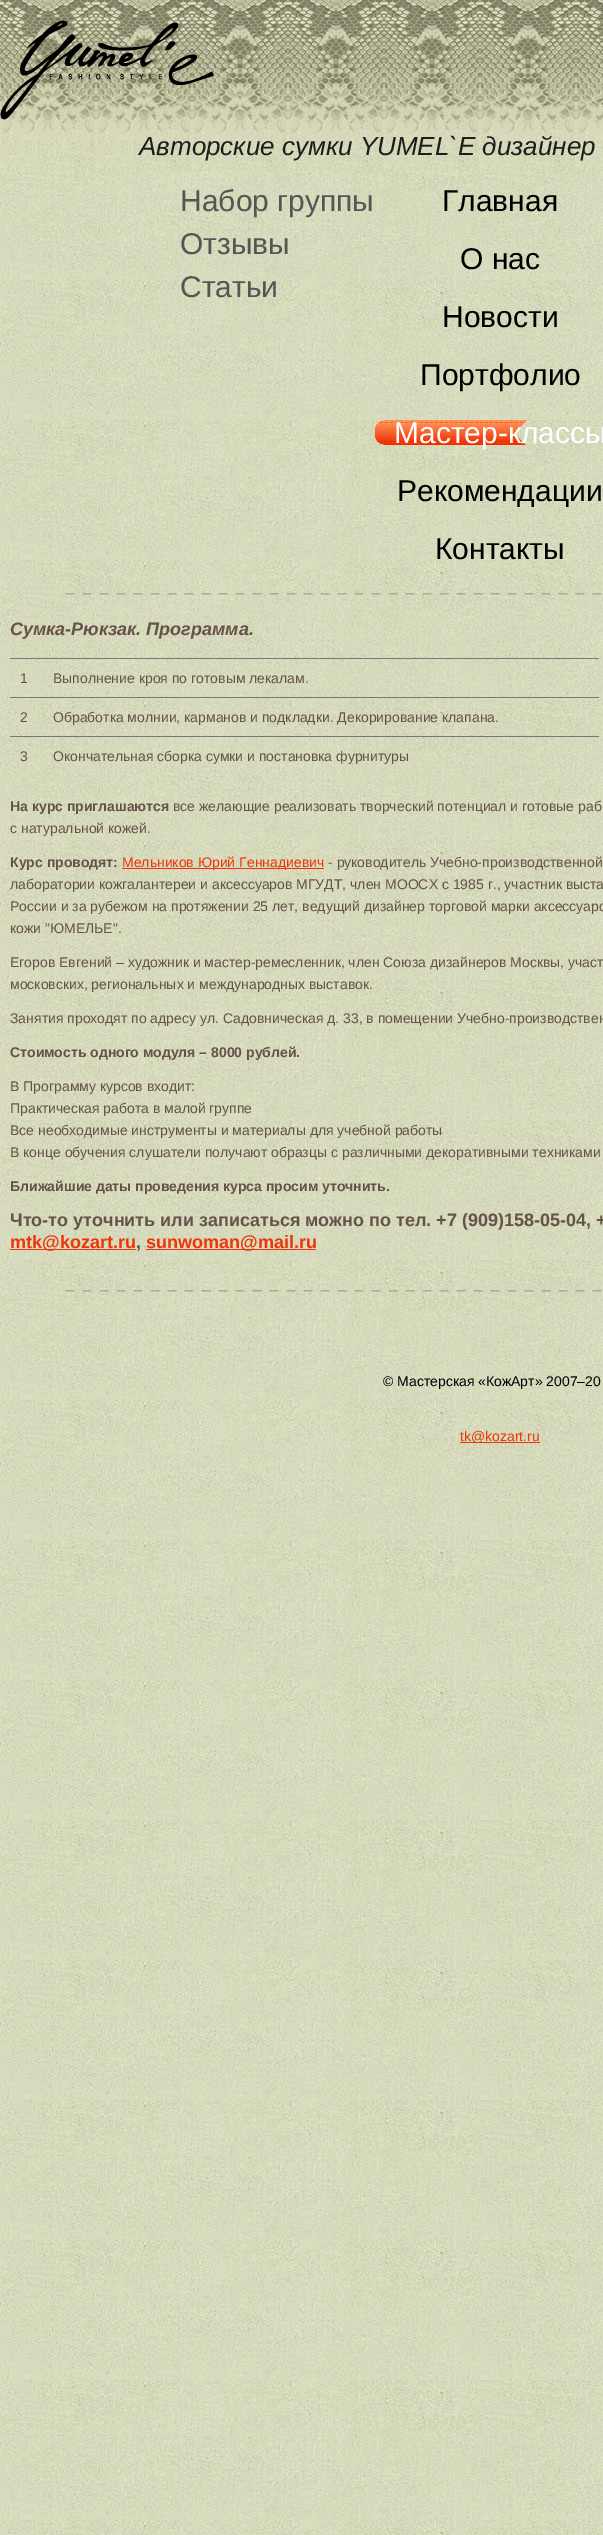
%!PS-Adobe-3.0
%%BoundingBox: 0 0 603 2535
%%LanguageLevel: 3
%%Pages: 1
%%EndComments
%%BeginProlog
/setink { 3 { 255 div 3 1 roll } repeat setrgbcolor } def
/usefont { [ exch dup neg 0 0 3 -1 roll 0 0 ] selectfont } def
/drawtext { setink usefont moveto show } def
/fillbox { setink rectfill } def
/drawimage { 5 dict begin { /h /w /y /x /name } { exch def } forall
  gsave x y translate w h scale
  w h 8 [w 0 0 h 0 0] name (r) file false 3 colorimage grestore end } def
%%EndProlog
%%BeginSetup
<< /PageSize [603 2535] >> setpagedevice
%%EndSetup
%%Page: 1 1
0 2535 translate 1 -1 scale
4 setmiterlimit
0 0 603 2535 255 255 255 fillbox
(assets/img1.rgb) 0 171 603 2364 drawimage
(assets/img2.rgb) 0 0 603 171 drawimage
(assets/img3.rgb) 0 20 214 100 drawimage
(Авторские сумки YUMEL`E дизайнер) 139 155 /LiberationSans-Italic 26 29 29 29 drawtext
(Набор группы) 180 211 /LiberationSans-Regular 30 85 85 85 drawtext
(Отзывы) 180 254 /LiberationSans-Regular 30 85 85 85 drawtext
(Статьи) 180 297 /LiberationSans-Regular 30 85 85 85 drawtext
(Главная) 442 211 /LiberationSans-Regular 30 0 0 0 drawtext
(О нас) 460 269 /LiberationSans-Regular 30 0 0 0 drawtext
(Новости) 442 327 /LiberationSans-Regular 30 0 0 0 drawtext
(Портфолио) 420 385 /LiberationSans-Regular 30 0 0 0 drawtext
(assets/img4.rgb) 374 420 153 25 drawimage
(Мастер-классы) 394 443 /LiberationSans-Regular 30 255 255 255 drawtext
(Рекомендации) 397 501 /LiberationSans-Regular 30 0 0 0 drawtext
(Контакты) 435 559 /LiberationSans-Regular 30 0 0 0 drawtext
(assets/img5.rgb) 65 593 538 2 drawimage
(Сумка-Рюкзак. Программа.) 10 635 /LiberationSans-BoldItalic 18 101 83 73 drawtext
(1) 20 683 /LiberationSans-Regular 14 101 83 73 drawtext
10 658 589 1 119 119 119 fillbox
(Выполнение кроя по готовым лекалам.) 53 683 /LiberationSans-Regular 14 101 83 73 drawtext
(2) 20 722 /LiberationSans-Regular 14 101 83 73 drawtext
10 697 589 1 119 119 119 fillbox
(Обработка молнии, карманов и подкладки. Декорирование клапана.) 53 722 /LiberationSans-Regular 14 101 83 73 drawtext
(3) 20 761 /LiberationSans-Regular 14 101 83 73 drawtext
10 736 589 1 119 119 119 fillbox
(Окончательная сборка сумки и постановка фурнитуры) 53 761 /LiberationSans-Regular 14 101 83 73 drawtext
(На курс приглашаются) 10 811 /LiberationSans-Bold 14 101 83 73 drawtext
(все желающие реализовать творческий потенциал и готовые раб) 173 811 /LiberationSans-Regular 14 101 83 73 drawtext
(с натуральной кожей.) 10 833 /LiberationSans-Regular 14 101 83 73 drawtext
(Курс проводят:) 10 867 /LiberationSans-Bold 14 101 83 73 drawtext
122 868 202 1 239 53 7 fillbox
(Мельников Юрий Геннадиевич) 122 867 /LiberationSans-Regular 14 239 53 7 drawtext
(- руководитель Учебно-производственной) 328 867 /LiberationSans-Regular 14 101 83 73 drawtext
(лаборатории кожгалантереи и аксессуаров МГУДТ, член МООСХ с 1985 г., участник выста) 10 889 /LiberationSans-Regular 14 101 83 73 drawtext
(России и за рубежом на протяжении 25 лет, ведущий дизайнер торговой марки аксессуаро) 10 911 /LiberationSans-Regular 14 101 83 73 drawtext
(кожи "ЮМЕЛЬЕ".) 10 933 /LiberationSans-Regular 14 101 83 73 drawtext
(Егоров Евгений – художник и мастер-ремесленник, член Союза дизайнеров Москвы, участ) 10 967 /LiberationSans-Regular 14 101 83 73 drawtext
(московских, региональных и международных выставок.) 10 989 /LiberationSans-Regular 14 101 83 73 drawtext
(Занятия проходят по адресу ул. Садовническая д. 33, в помещении Учебно-производствен) 10 1023 /LiberationSans-Regular 14 101 83 73 drawtext
(Стоимость одного модуля – 8000 рублей.) 10 1057 /LiberationSans-Bold 14 101 83 73 drawtext
(В Программу курсов входит:) 10 1091 /LiberationSans-Regular 14 101 83 73 drawtext
(Практическая работа в малой группе) 10 1113 /LiberationSans-Regular 14 101 83 73 drawtext
(Все необходимые инструменты и материалы для учебной работы) 10 1135 /LiberationSans-Regular 14 101 83 73 drawtext
(В конце обучения слушатели получают образцы с различными декоративными техниками) 10 1157 /LiberationSans-Regular 14 101 83 73 drawtext
(Ближайшие даты проведения курса просим уточнить.) 10 1191 /LiberationSans-Bold 14 101 83 73 drawtext
(Что-то уточнить или записаться можно по тел. +7 \(909\)158-05-04, +) 10 1226 /LiberationSans-Bold 18 101 83 73 drawtext
10 1249 126 1 239 53 7 fillbox
(mtk@kozart.ru) 10 1248 /LiberationSans-Bold 18 239 53 7 drawtext
(,) 136 1248 /LiberationSans-Bold 18 101 83 73 drawtext
146 1249 170 1 239 53 7 fillbox
(sunwoman@mail.ru) 146 1248 /LiberationSans-Bold 18 239 53 7 drawtext
(assets/img6.rgb) 65 1290 537 2 drawimage
(© Мастерская «КожАрт» 2007–20) 383 1386 /LiberationSans-Regular 14 0 0 0 drawtext
460 1442 80 1 239 53 7 fillbox
(tk@kozart.ru) 460 1441 /LiberationSans-Regular 14 239 53 7 drawtext
showpage
%%EOF
